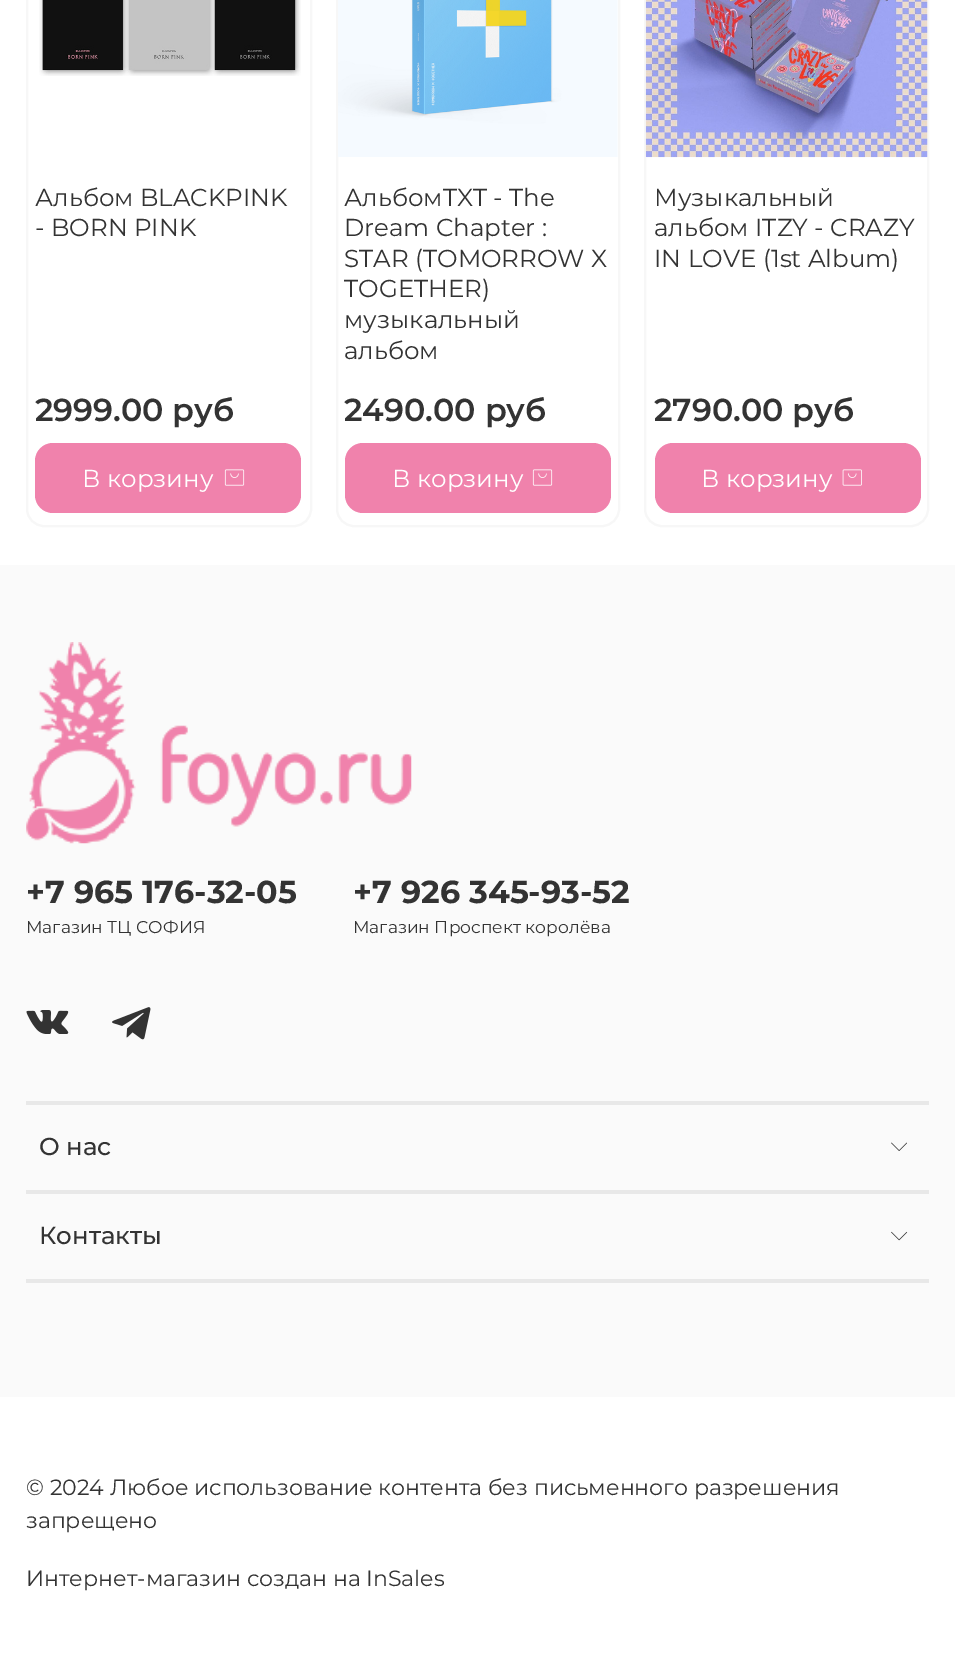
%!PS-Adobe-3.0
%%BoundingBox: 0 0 955 1673
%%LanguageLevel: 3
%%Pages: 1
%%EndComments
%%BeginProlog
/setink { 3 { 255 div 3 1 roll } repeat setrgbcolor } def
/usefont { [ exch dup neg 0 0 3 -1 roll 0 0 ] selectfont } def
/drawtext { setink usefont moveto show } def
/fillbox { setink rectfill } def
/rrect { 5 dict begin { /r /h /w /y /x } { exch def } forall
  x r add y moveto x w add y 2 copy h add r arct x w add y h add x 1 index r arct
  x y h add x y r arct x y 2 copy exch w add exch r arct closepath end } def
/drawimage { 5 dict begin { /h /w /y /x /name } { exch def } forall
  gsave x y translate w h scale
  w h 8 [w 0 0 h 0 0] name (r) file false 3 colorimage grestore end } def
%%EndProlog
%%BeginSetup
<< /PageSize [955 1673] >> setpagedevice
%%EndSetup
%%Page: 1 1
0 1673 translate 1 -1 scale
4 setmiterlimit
0 0 955 1673 255 255 255 fillbox
247 247 247 setink
2 setlinewidth
27 -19 284 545 17 rrect stroke
(assets/img1.rgb) 39 0 262 76 drawimage
(Альбом BLACKPINK) 35 206 /Montserrat-Regular 24.5 51 51 51 drawtext
(- BORN PINK) 35 236 /Montserrat-Regular 24.5 51 51 51 drawtext
(2999.00 руб) 35 421 /Montserrat-SemiBold 31.75 51 51 51 drawtext
240 130 172 setink
35 443 266 70 18 rrect fill
(В корзину) 82 487 /Montserrat-Regular 24.5 255 255 255 drawtext
(assets/img2.rgb) 224 469 21 17 drawimage
247 247 247 setink
337 -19 282 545 17 rrect stroke
(assets/img3.rgb) 338 0 280 157 drawimage
(АльбомTXT - The) 344 206 /Montserrat-Regular 24.5 51 51 51 drawtext
(Dream Chapter :) 344 236 /Montserrat-Regular 24.5 51 51 51 drawtext
(STAR \(TOMORROW X) 344 267 /Montserrat-Regular 24.5 51 51 51 drawtext
(TOGETHER\)) 344 297 /Montserrat-Regular 24.5 51 51 51 drawtext
(музыкальный) 344 328 /Montserrat-Regular 24.5 51 51 51 drawtext
(альбом) 344 359 /Montserrat-Regular 24.5 51 51 51 drawtext
(2490.00 руб) 344 421 /Montserrat-SemiBold 31.75 51 51 51 drawtext
240 130 172 setink
345 443 266 70 18 rrect fill
(В корзину) 392 487 /Montserrat-Regular 24.5 255 255 255 drawtext
(assets/img2.rgb) 532 469 21 17 drawimage
247 247 247 setink
645 -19 283 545 17 rrect stroke
(assets/img4.rgb) 645 0 283 158 drawimage
(Музыкальный) 654 206 /Montserrat-Regular 24.5 51 51 51 drawtext
(альбом ITZY - CRAZY) 654 236 /Montserrat-Regular 24.5 51 51 51 drawtext
(IN LOVE \(1st Album\)) 654 267 /Montserrat-Regular 24.5 51 51 51 drawtext
(2790.00 руб) 654 421 /Montserrat-SemiBold 31.75 51 51 51 drawtext
240 130 172 setink
655 443 266 70 18 rrect fill
(В корзину) 701 487 /Montserrat-Regular 24.5 255 255 255 drawtext
(assets/img5.rgb) 842 469 20 17 drawimage
0 565 955 832 250 250 250 fillbox
(assets/img6.rgb) 26 642 386 202 drawimage
(+7 965 176-32-05) 26 903 /Montserrat-Bold 31.75 51 51 51 drawtext
(Магазин ТЦ СОФИЯ) 26 933 /Montserrat-Regular 17.1 51 51 51 drawtext
(+7 926 345-93-52) 353 903 /Montserrat-Bold 31.75 51 51 51 drawtext
(Магазин Проспект королёва) 353 933 /Montserrat-Regular 17.1 51 51 51 drawtext
(assets/img7.rgb) 26 1010 43 24 drawimage
(assets/img8.rgb) 112 1007 39 33 drawimage
26 1101 903 4 232 232 232 fillbox
(О нас) 39 1155 /Montserrat-Medium 24.5 51 51 51 drawtext
(assets/img9.rgb) 891 1142 16 9 drawimage
26 1190 903 4 232 232 232 fillbox
26 1279 903 4 232 232 232 fillbox
(Контакты) 39 1244 /Montserrat-Medium 24.5 51 51 51 drawtext
(assets/img10.rgb) 891 1231 17 10 drawimage
(© 2024 Любое использование контента без письменного разрешения) 26 1495 /Montserrat-Regular 22.05 51 51 51 drawtext
(запрещено) 26 1528 /Montserrat-Regular 22.05 51 51 51 drawtext
(Интернет-магазин создан на InSales) 26 1586 /Montserrat-Regular 22.05 51 51 51 drawtext
showpage
%%EOF
